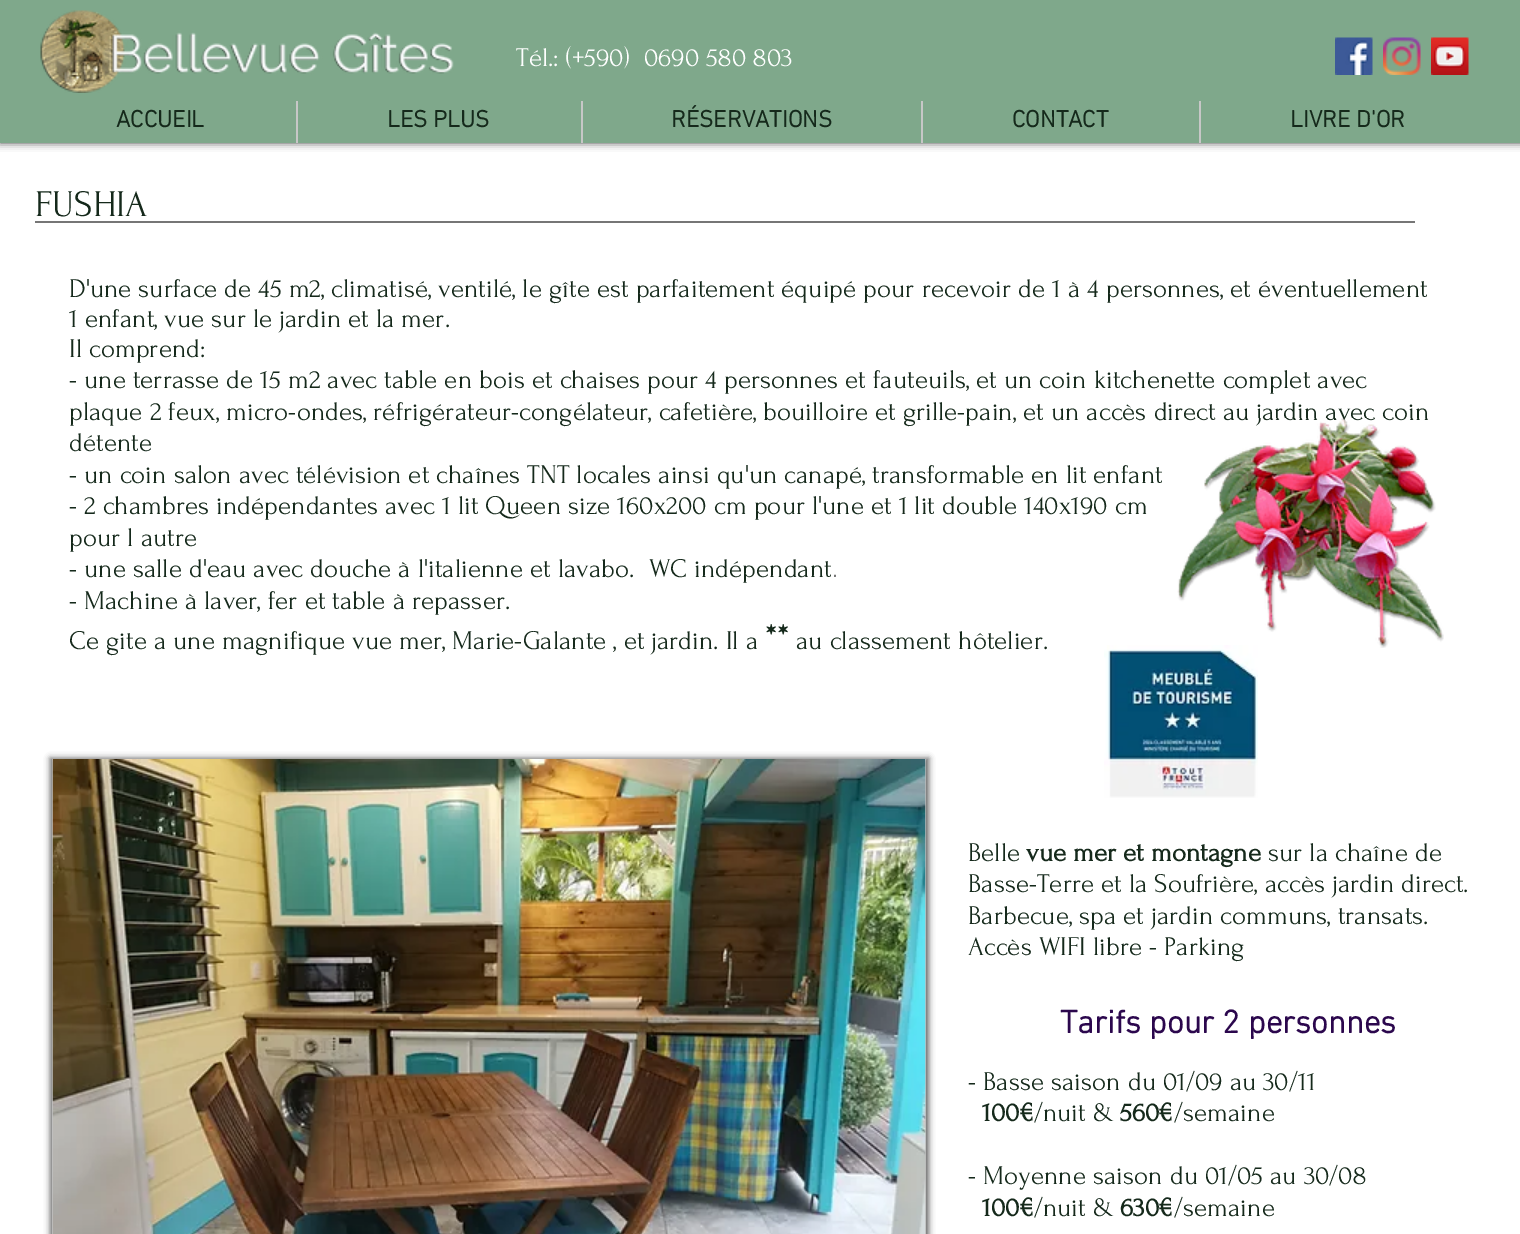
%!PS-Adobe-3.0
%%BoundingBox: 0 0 1520 1234
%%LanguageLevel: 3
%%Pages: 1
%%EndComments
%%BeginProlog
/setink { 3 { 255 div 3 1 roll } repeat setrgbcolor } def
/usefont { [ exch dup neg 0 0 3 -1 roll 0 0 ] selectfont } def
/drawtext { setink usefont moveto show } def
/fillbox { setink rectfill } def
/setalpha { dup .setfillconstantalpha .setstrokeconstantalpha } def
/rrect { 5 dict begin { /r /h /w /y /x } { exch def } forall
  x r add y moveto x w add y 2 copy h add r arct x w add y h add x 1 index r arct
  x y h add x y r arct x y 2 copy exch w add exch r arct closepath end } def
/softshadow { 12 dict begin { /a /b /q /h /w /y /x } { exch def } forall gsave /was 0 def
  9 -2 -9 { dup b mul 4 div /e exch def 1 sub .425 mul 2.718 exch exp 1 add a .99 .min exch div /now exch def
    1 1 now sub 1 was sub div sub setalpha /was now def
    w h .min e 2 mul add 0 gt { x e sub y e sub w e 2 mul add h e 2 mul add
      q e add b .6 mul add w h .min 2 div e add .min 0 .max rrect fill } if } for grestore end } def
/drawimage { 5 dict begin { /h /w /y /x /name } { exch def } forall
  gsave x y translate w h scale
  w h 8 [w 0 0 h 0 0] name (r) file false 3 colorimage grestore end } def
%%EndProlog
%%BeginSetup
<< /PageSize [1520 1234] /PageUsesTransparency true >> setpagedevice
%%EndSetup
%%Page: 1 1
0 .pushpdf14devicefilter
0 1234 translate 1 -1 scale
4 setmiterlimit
0 0 1520 1234 255 255 255 fillbox
0 0 0 setink
0 0 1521 143 0 4 0.7 softshadow
0 0 1520 143 127 168 139 fillbox
(assets/img1.rgb) 40 10 414 83 drawimage
(Tél.: \(+590\)  0690 580 803) 516 66 /Forum-Regular 27 255 255 255 drawtext
(assets/img2.rgb) 1335 37 38 38 drawimage
(assets/img3.rgb) 1383 37 38 38 drawimage
(assets/img4.rgb) 1431 37 38 38 drawimage
(ACCUEIL) 116 127 /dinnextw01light-Bold 24 21 41 27 drawtext
296 101 2 42 199 199 199 fillbox
(LES PLUS) 387 127 /dinnextw01light-Bold 24 21 41 27 drawtext
581 101 2 42 199 199 199 fillbox
(RÉSERVATIONS) 671 127 /dinnextw01light-Bold 24 21 41 27 drawtext
921 101 2 42 199 199 199 fillbox
(CONTACT) 1012 127 /dinnextw01light-Bold 24 21 41 27 drawtext
1199 101 2 42 199 199 199 fillbox
(LIVRE D'OR) 1290 127 /dinnextw01light-Bold 24 21 41 27 drawtext
(FUSHIA) 35 216 /Forum-Regular 37.5 21 41 27 drawtext
35 221 1380 2 118 118 118 fillbox
(D'une surface de 45 m2, climatisé, ventilé, le gîte est parfaitement équipé pour recevoir de 1 à 4 personnes, et éventuellement) 69 297 /Forum-Regular 27 21 41 27 drawtext
(1 enfant, vue sur le jardin et la mer.) 69 327 /Forum-Regular 27 21 41 27 drawtext
(Il comprend:) 69 357 /Forum-Regular 27 21 41 27 drawtext
(- une terrasse de 15 m2 avec table en bois et chaises pour 4 personnes et fauteuils, et un coin kitchenette complet avec) 69 388 /Forum-Regular 27 21 41 27 drawtext
(plaque 2 feux, micro-ondes, réfrigérateur-congélateur, cafetière, bouilloire et grille-pain, et un accès direct au jardin avec coin) 69 420 /Forum-Regular 27 21 41 27 drawtext
(détente) 69 451 /Forum-Regular 27 21 41 27 drawtext
(- un coin salon avec télévision et chaînes TNT locales ainsi qu'un canapé, transformable en lit enfant) 69 483 /Forum-Regular 27 21 41 27 drawtext
(- 2 chambres indépendantes avec 1 lit Queen size 160x200 cm pour l'une et 1 lit double 140x190 cm) 69 514 /Forum-Regular 27 21 41 27 drawtext
(pour l autre) 69 546 /Forum-Regular 27 21 41 27 drawtext
(- une salle d'eau avec douche à l'italienne et lavabo.  WC indépendant) 69 577 /Forum-Regular 27 21 41 27 drawtext
(.) 832 577 /dinnextw01light-Light 27 118 118 118 drawtext
(- Machine à laver, fer et table à repasser.) 69 609 /Forum-Regular 27 21 41 27 drawtext
(Ce gite a une magnifique vue mer, Marie-Galante , et jardin. Il a) 69 649 /Forum-Regular 27 21 41 27 drawtext
(**) 765 649 /Forum-Bold 36 21 41 27 drawtext
(au classement hôtelier.) 796 649 /Forum-Regular 27 21 41 27 drawtext
(assets/img5.rgb) 1177 418 267 230 drawimage
(assets/img6.rgb) 1104 645 154 153 drawimage
0 0 0 setink
50 758 879 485 0 3 0.6 softshadow
(assets/img7.rgb) 52 759 874 475 drawimage
(Belle) 968 861 /Forum-Regular 27 21 41 27 drawtext
(vue mer et montagne) 1026 861 /Forum-Bold 27 21 41 27 drawtext
(sur la chaîne de) 1268 861 /Forum-Regular 27 21 41 27 drawtext
(Basse-Terre et la Soufrière, accès jardin direct.) 968 892 /Forum-Regular 27 21 41 27 drawtext
(Barbecue, spa et jardin communs, transats.) 968 924 /Forum-Regular 27 21 41 27 drawtext
(Accès WIFI libre - Parking) 968 955 /Forum-Regular 27 21 41 27 drawtext
(Tarifs pour 2 personnes) 1060 1033 /dinnextw01light-Bold 33 43 7 77 drawtext
(- Basse saison du 01/09 au 30/11) 968 1090 /Forum-Regular 27 21 41 27 drawtext
(100€) 982 1121 /Forum-Bold 27 21 41 27 drawtext
(/nuit &) 1034 1121 /Forum-Regular 27 21 41 27 drawtext
(560€) 1120 1121 /Forum-Bold 27 21 41 27 drawtext
(/semaine) 1174 1121 /Forum-Regular 27 21 41 27 drawtext
(- Moyenne saison du 01/05 au 30/08) 968 1184 /Forum-Regular 27 21 41 27 drawtext
(100€) 982 1216 /Forum-Bold 27 21 41 27 drawtext
(/nuit &) 1034 1216 /Forum-Regular 27 21 41 27 drawtext
(630€) 1120 1216 /Forum-Bold 27 21 41 27 drawtext
(/semaine) 1174 1216 /Forum-Regular 27 21 41 27 drawtext
.poppdf14devicefilter showpage
%%EOF
